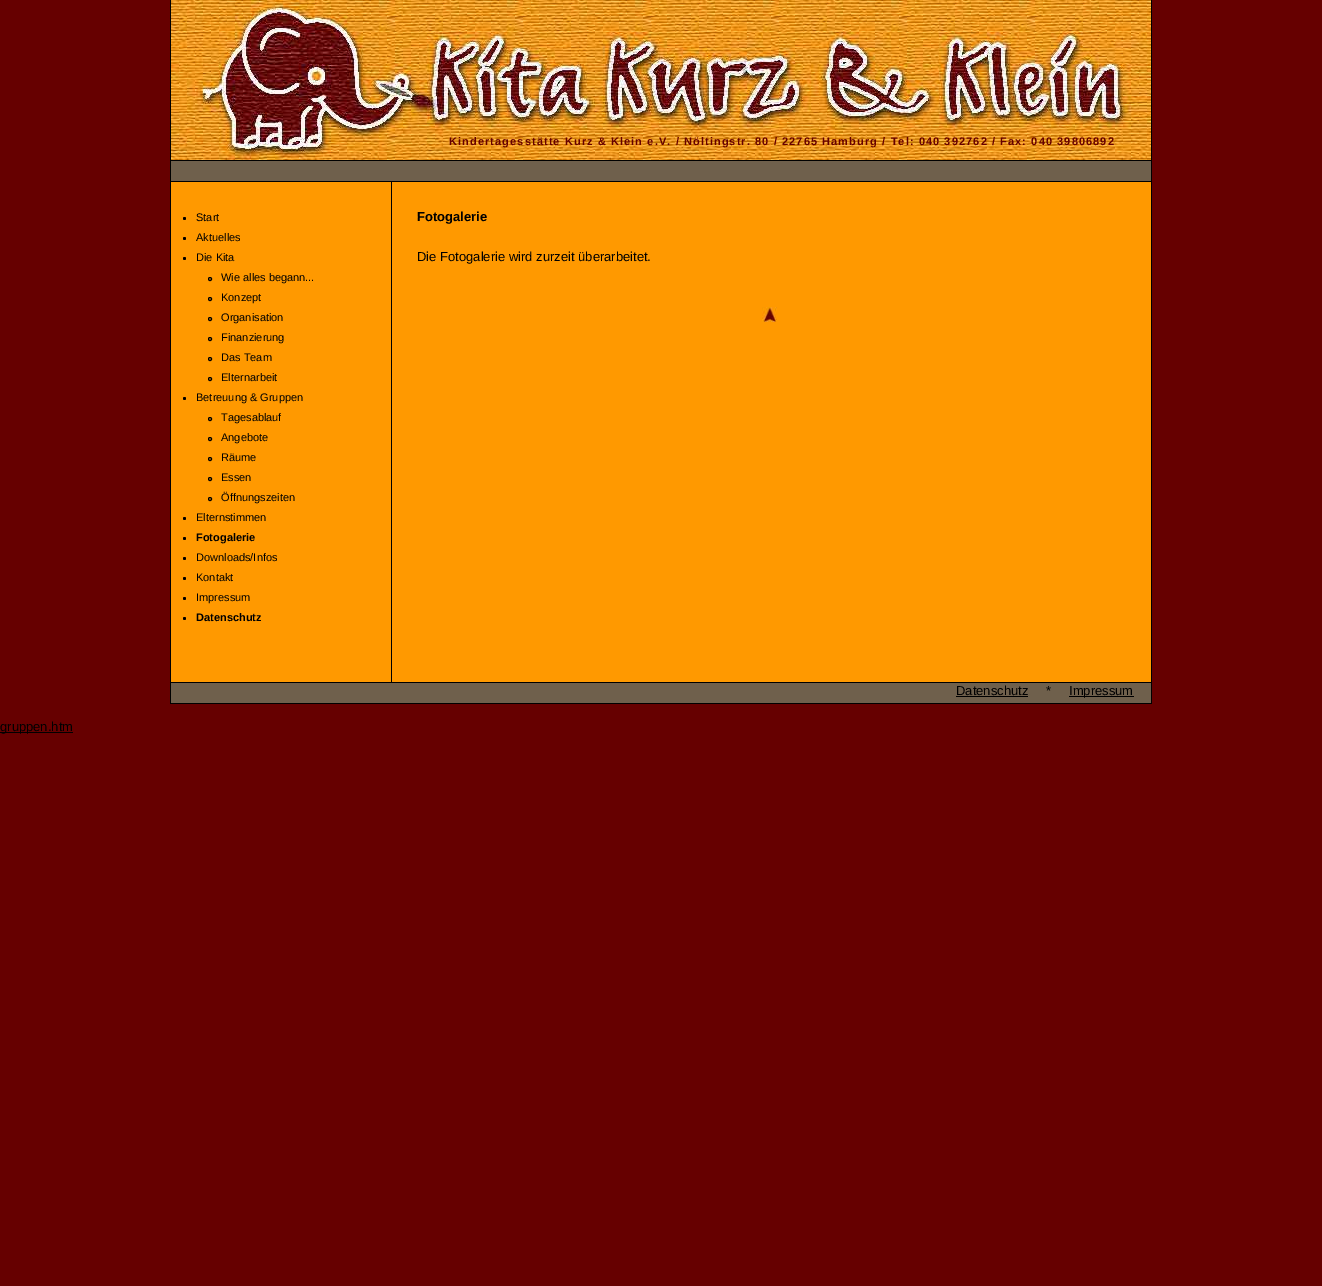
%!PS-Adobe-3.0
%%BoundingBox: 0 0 1322 1286
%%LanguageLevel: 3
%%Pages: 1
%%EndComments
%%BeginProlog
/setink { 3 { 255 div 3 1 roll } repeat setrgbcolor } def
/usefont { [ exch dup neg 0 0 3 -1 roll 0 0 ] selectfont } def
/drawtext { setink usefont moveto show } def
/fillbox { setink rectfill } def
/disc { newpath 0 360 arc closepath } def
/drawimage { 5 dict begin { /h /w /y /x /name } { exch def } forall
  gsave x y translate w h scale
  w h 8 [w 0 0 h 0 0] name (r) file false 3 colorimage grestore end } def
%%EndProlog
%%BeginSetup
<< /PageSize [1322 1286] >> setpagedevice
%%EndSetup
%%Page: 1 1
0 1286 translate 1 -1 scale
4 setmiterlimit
0 0 1322 1286 102 0 0 fillbox
171 182 980 500 255 153 0 fillbox
1151 0 1 704 0 0 0 fillbox
170 0 1 704 0 0 0 fillbox
(assets/img1.rgb) 171 0 980 160 drawimage
/LiberationSans-Bold 11 usefont
102 0 0 setink
449 145 moveto 1.1 0 (Kindertagesstätte Kurz & Klein e.V. / Nöltingstr. 80 / 22765 Hamburg / Tel: 040 392762 / Fax: 040 39806892) ashow
171 161 980 20 111 96 76 fillbox
171 160 980 1 0 0 0 fillbox
171 181 980 1 0 0 0 fillbox
184.5 218.5 1.5 disc fill
(Start) 196 221 /LiberationSans-Regular 11 0 0 0 drawtext
184.5 238.5 1.5 disc fill
(Aktuelles) 196 241 /LiberationSans-Regular 11 0 0 0 drawtext
184.5 258.5 1.5 disc fill
(Die Kita) 196 261 /LiberationSans-Regular 11 0 0 0 drawtext
210 279 1.5 disc stroke
(Wie alles begann...) 221 281 /LiberationSans-Regular 11 0 0 0 drawtext
210 299 1.5 disc stroke
(Konzept) 221 301 /LiberationSans-Regular 11 0 0 0 drawtext
210 319 1.5 disc stroke
(Organisation) 221 321 /LiberationSans-Regular 11 0 0 0 drawtext
210 339 1.5 disc stroke
(Finanzierung) 221 341 /LiberationSans-Regular 11 0 0 0 drawtext
210 359 1.5 disc stroke
(Das Team) 221 361 /LiberationSans-Regular 11 0 0 0 drawtext
210 379 1.5 disc stroke
(Elternarbeit) 221 381 /LiberationSans-Regular 11 0 0 0 drawtext
184.5 398.5 1.5 disc fill
(Betreuung & Gruppen) 196 401 /LiberationSans-Regular 11 0 0 0 drawtext
210 419 1.5 disc stroke
(Tagesablauf) 221 421 /LiberationSans-Regular 11 0 0 0 drawtext
210 439 1.5 disc stroke
(Angebote) 221 441 /LiberationSans-Regular 11 0 0 0 drawtext
210 459 1.5 disc stroke
(Räume) 221 461 /LiberationSans-Regular 11 0 0 0 drawtext
210 479 1.5 disc stroke
(Essen) 221 481 /LiberationSans-Regular 11 0 0 0 drawtext
210 499 1.5 disc stroke
(Öffnungszeiten) 221 501 /LiberationSans-Regular 11 0 0 0 drawtext
184.5 518.5 1.5 disc fill
(Elternstimmen) 196 521 /LiberationSans-Regular 11 0 0 0 drawtext
184.5 538.5 1.5 disc fill
(Fotogalerie) 196 541 /LiberationSans-Bold 11 0 0 0 drawtext
184.5 558.5 1.5 disc fill
(Downloads/Infos) 196 561 /LiberationSans-Regular 11 0 0 0 drawtext
184.5 578.5 1.5 disc fill
(Kontakt) 196 581 /LiberationSans-Regular 11 0 0 0 drawtext
184.5 598.5 1.5 disc fill
(Impressum) 196 601 /LiberationSans-Regular 11 0 0 0 drawtext
184.5 618.5 1.5 disc fill
(Datenschutz) 196 621 /LiberationSans-Bold 11 0 0 0 drawtext
391 182 1 500 0 0 0 fillbox
(Fotogalerie) 417 221 /LiberationSans-Bold 13 0 0 0 drawtext
(Die Fotogalerie wird zurzeit überarbeitet.) 417 261 /LiberationSans-Regular 13 0 0 0 drawtext
(assets/img2.rgb) 762 307 15 15 drawimage
171 683 980 20 111 96 76 fillbox
171 682 980 1 0 0 0 fillbox
171 703 980 1 0 0 0 fillbox
(Datenschutz) 956 695 /LiberationSans-Regular 13 0 0 0 drawtext
956 696 72 1 0 0 0 fillbox
(*) 1046 695 /LiberationSans-Regular 13 0 0 0 drawtext
1069 696 65 1 0 0 0 fillbox
(Impressum) 1069 695 /LiberationSans-Regular 13 0 0 0 drawtext
0 732 73 1 0 0 0 fillbox
(gruppen.htm) 0 731 /LiberationSans-Regular 13 0 0 0 drawtext
showpage
%%EOF
